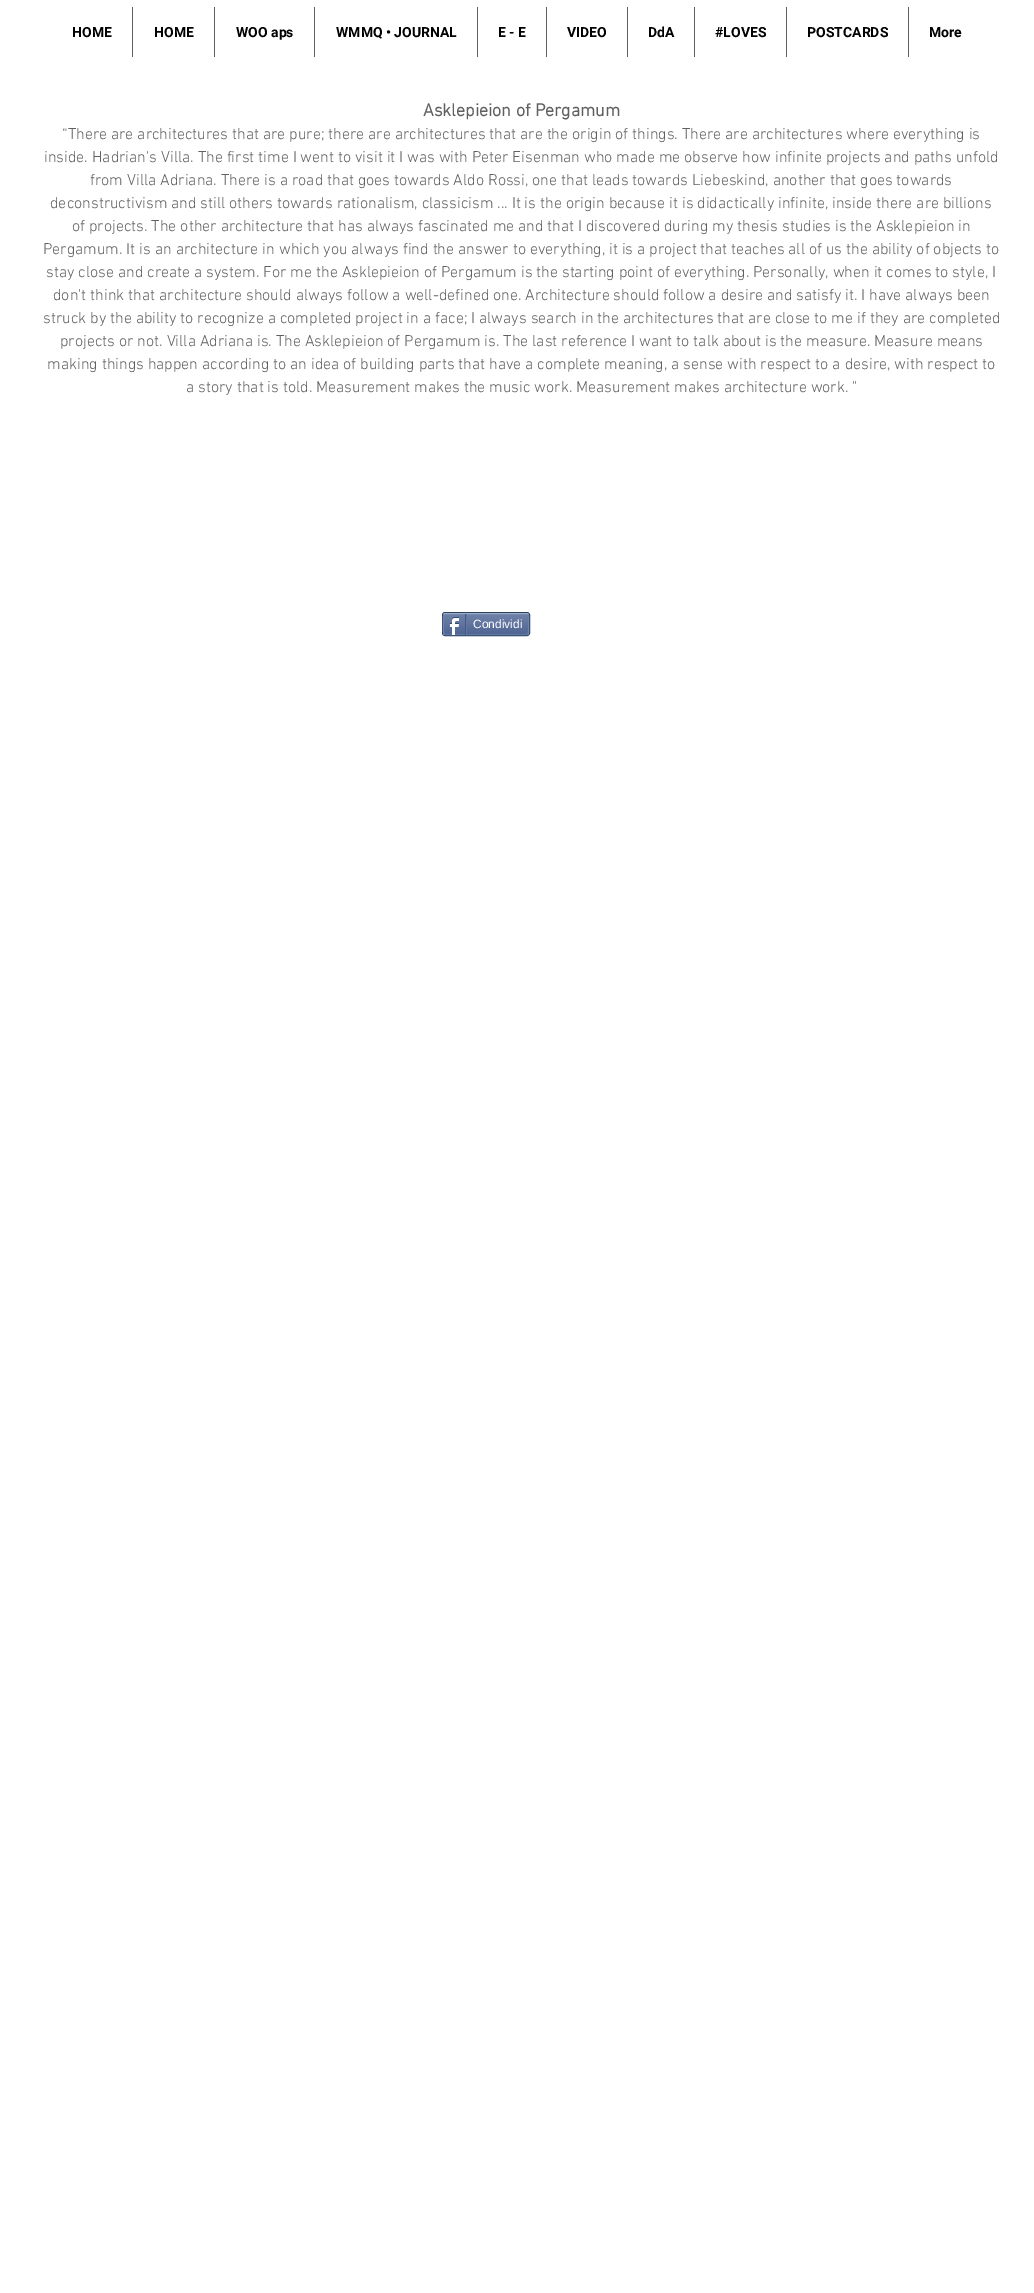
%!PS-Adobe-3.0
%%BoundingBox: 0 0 1034 2293
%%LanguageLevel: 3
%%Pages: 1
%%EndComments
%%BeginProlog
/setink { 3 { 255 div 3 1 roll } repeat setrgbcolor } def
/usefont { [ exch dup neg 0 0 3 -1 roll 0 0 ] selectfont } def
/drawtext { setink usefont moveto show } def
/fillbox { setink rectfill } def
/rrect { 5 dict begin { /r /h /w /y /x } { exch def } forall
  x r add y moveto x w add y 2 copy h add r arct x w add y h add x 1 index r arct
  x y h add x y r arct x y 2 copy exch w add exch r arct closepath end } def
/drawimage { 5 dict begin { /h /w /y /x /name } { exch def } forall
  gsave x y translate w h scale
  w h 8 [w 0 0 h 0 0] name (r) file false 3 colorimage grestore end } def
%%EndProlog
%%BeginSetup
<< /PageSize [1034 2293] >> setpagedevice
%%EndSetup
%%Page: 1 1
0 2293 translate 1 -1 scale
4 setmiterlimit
0 0 1034 2293 255 255 255 fillbox
(HOME) 72 37 /Roboto-Bold 14 0 0 0 drawtext
132 7 1 50 96 96 96 fillbox
(HOME) 154 37 /Roboto-Bold 14 0 0 0 drawtext
214 7 1 50 96 96 96 fillbox
(WOO aps) 236 37 /Roboto-Bold 14 0 0 0 drawtext
314 7 1 50 96 96 96 fillbox
(WMMQ • JOURNAL) 336 37 /Roboto-Bold 14 0 0 0 drawtext
477 7 1 50 96 96 96 fillbox
(E - E) 498 37 /Roboto-Bold 14 0 0 0 drawtext
546 7 1 50 96 96 96 fillbox
(VIDEO) 567 37 /Roboto-Bold 14 0 0 0 drawtext
627 7 1 50 96 96 96 fillbox
(DdA) 648 37 /Roboto-Bold 14 0 0 0 drawtext
694 7 1 50 96 96 96 fillbox
(#LOVES) 715 37 /Roboto-Bold 14 0 0 0 drawtext
786 7 1 50 96 96 96 fillbox
(POSTCARDS) 807 37 /Roboto-Bold 14 0 0 0 drawtext
908 7 1 50 96 96 96 fillbox
(More) 929 37 /Roboto-Bold 14 0 0 0 drawtext
(Asklepieion of Pergamum) 423 116 /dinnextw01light-Bold 18 96 96 96 drawtext
(“There are architectures that are pure; there are architectures that are the origin of things. There are architectures where everything is) 62 139 /dinnextw01light-Light 16 96 96 96 drawtext
(inside. Hadrian's Villa. The first time I went to visit it I was with Peter Eisenman who made me observe how infinite projects and paths unfold) 44 162 /dinnextw01light-Light 16 96 96 96 drawtext
(from Villa Adriana. There is a road that goes towards Aldo Rossi, one that leads towards Liebeskind, another that goes towards) 90 185 /dinnextw01light-Light 16 96 96 96 drawtext
(deconstructivism and still others towards rationalism, classicism ... It is the origin because it is didactically infinite, inside there are billions) 50 208 /dinnextw01light-Light 16 96 96 96 drawtext
(of projects. The other architecture that has always fascinated me and that I discovered during my thesis studies is the Asklepieion in) 72 231 /dinnextw01light-Light 16 96 96 96 drawtext
(Pergamum. It is an architecture in which you always find the answer to everything, it is a project that teaches all of us the ability of objects to) 43 254 /dinnextw01light-Light 16 96 96 96 drawtext
(stay close and create a system. For me the Asklepieion of Pergamum is the starting point of everything. Personally, when it comes to style, I) 46 277 /dinnextw01light-Light 16 96 96 96 drawtext
(don't think that architecture should always follow a well-defined one. Architecture should follow a desire and satisfy it. I have always been) 53 300 /dinnextw01light-Light 16 96 96 96 drawtext
(struck by the ability to recognize a completed project in a face; I always search in the architectures that are close to me if they are completed) 43 323 /dinnextw01light-Light 16 96 96 96 drawtext
(projects or not. Villa Adriana is. The Asklepieion of Pergamum is. The last reference I want to talk about is the measure. Measure means) 60 346 /dinnextw01light-Light 16 96 96 96 drawtext
(making things happen according to an idea of building parts that have a complete meaning, a sense with respect to a desire, with respect to) 47 369 /dinnextw01light-Light 16 96 96 96 drawtext
(a story that is told. Measurement makes the music work. Measurement makes architecture work. ") 186 392 /dinnextw01light-Light 16 96 96 96 drawtext
45 69 101 setink
442.5 612.5 87 23 2.5 rrect stroke
(assets/img1.rgb) 443 614 86 21 drawimage
154 171 198 setink
444 614 moveto 445 613.5 lineto 527 613.5 lineto 528 614 lineto stroke
111 131 173 setink
528 614 moveto 529 614.5 529 633.5 528 634 curveto stroke
97 118 163 setink
528 634 moveto 527 634.5 lineto 445 634.5 lineto 444 634 lineto stroke
111 131 173 setink
444 634 moveto 443 633.5 443 614.5 444 614 curveto stroke
(assets/img2.rgb) 449 617 10 18 drawimage
465 614 1 21 66 94 133 fillbox
(Condividi) 473 628 /LiberationSans-Regular 12 255 255 255 drawtext
466 614 1 20 97 118 163 fillbox
showpage
%%EOF
